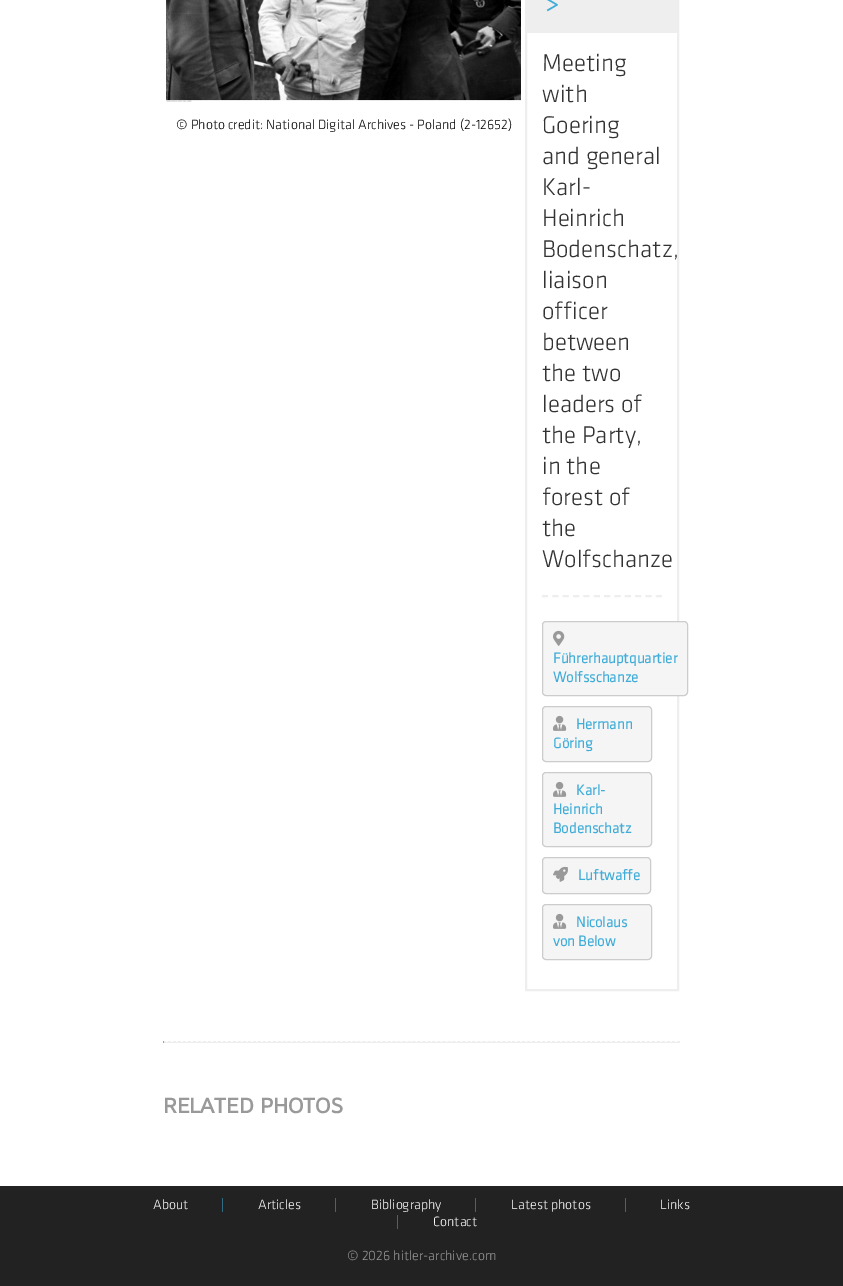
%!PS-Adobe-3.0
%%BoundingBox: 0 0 843 1286
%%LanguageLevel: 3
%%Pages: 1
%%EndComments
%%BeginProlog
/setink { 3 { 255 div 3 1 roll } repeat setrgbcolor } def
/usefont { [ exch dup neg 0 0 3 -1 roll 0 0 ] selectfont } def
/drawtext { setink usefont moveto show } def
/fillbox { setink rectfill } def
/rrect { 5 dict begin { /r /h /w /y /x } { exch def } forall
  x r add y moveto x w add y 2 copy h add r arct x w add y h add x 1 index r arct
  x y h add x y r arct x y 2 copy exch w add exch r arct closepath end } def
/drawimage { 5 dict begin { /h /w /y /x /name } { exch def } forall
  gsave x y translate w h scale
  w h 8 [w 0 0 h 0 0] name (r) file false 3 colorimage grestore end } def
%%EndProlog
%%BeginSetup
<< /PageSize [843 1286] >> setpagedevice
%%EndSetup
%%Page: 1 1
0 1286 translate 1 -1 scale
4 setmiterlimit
0 0 843 1286 255 255 255 fillbox
(assets/img1.rgb) 166 0 355 102 drawimage
(© Photo credit: National Digital Archives - Poland \(2-12652\)) 176 129 /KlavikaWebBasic-Light 14 0 0 0 drawtext
238 238 238 setink
2 setlinewidth
526 -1 152 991 rectstroke
527 0 150 33 238 238 238 fillbox
(>) 545 11 /KlavikaWebBasic-Bold 24 64 173 217 drawtext
(Meeting) 542 71 /KlavikaWebBasic-Light 25 51 51 51 drawtext
(with) 542 102 /KlavikaWebBasic-Light 25 51 51 51 drawtext
(Goering) 542 133 /KlavikaWebBasic-Light 25 51 51 51 drawtext
(and general) 542 164 /KlavikaWebBasic-Light 25 51 51 51 drawtext
(Karl-) 542 195 /KlavikaWebBasic-Light 25 51 51 51 drawtext
(Heinrich) 542 226 /KlavikaWebBasic-Light 25 51 51 51 drawtext
(Bodenschatz,) 542 257 /KlavikaWebBasic-Light 25 51 51 51 drawtext
(liaison) 542 288 /KlavikaWebBasic-Light 25 51 51 51 drawtext
(officer) 542 319 /KlavikaWebBasic-Light 25 51 51 51 drawtext
(between) 542 350 /KlavikaWebBasic-Light 25 51 51 51 drawtext
(the two) 542 381 /KlavikaWebBasic-Light 25 51 51 51 drawtext
(leaders of) 542 412 /KlavikaWebBasic-Light 25 51 51 51 drawtext
(the Party,) 542 443 /KlavikaWebBasic-Light 25 51 51 51 drawtext
(in the) 542 474 /KlavikaWebBasic-Light 25 51 51 51 drawtext
(forest of) 542 505 /KlavikaWebBasic-Light 25 51 51 51 drawtext
(the) 542 536 /KlavikaWebBasic-Light 25 51 51 51 drawtext
(Wolfschanze) 542 567 /KlavikaWebBasic-Light 25 51 51 51 drawtext
238 238 238 setink
[6 4.36] 0 setdash
542 596 moveto 662 596 lineto stroke
245 245 245 setink
542.5 621.5 145 74 3.5 rrect gsave fill grestore
204 204 204 setink
1 setlinewidth
[] 0 setdash
stroke
(assets/img2.rgb) 553 630 12 16 drawimage
(Führerhauptquartier) 553 663 /KlavikaWebBasic-Bold 15 64 173 217 drawtext
(Wolfsschanze) 553 682 /KlavikaWebBasic-Bold 15 64 173 217 drawtext
245 245 245 setink
542.5 706.5 109 55 3.5 rrect gsave fill grestore
204 204 204 setink
stroke
(assets/img3.rgb) 553 715 14 16 drawimage
(Hermann) 576 729 /KlavikaWebBasic-Bold 15 64 173 217 drawtext
(Göring) 553 748 /KlavikaWebBasic-Bold 15 64 173 217 drawtext
245 245 245 setink
542.5 772.5 109 74 3.5 rrect gsave fill grestore
204 204 204 setink
stroke
(assets/img3.rgb) 553 781 14 16 drawimage
(Karl-) 576 795 /KlavikaWebBasic-Bold 15 64 173 217 drawtext
(Heinrich) 553 814 /KlavikaWebBasic-Bold 15 64 173 217 drawtext
(Bodenschatz) 553 833 /KlavikaWebBasic-Bold 15 64 173 217 drawtext
245 245 245 setink
542.5 857.5 108 36 3.5 rrect gsave fill grestore
204 204 204 setink
stroke
(assets/img4.rgb) 553 866 15 16 drawimage
(Luftwaffe) 578 880 /KlavikaWebBasic-Bold 15 64 173 217 drawtext
245 245 245 setink
542.5 904.5 109 55 3.5 rrect gsave fill grestore
204 204 204 setink
stroke
(assets/img3.rgb) 553 913 14 16 drawimage
(Nicolaus) 576 927 /KlavikaWebBasic-Bold 15 64 173 217 drawtext
(von Below) 553 946 /KlavikaWebBasic-Bold 15 64 173 217 drawtext
238 238 238 setink
[3 1.99] 0 setdash
163 1041.5 moveto 680 1041.5 lineto stroke
679 1041 1 2 238 238 238 fillbox
163 1042 517 1 238 238 238 fillbox
163 1041 1 2 159 159 159 fillbox
(RELATED PHOTOS) 163 1113 /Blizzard-Bold 21 153 153 153 drawtext
0 1186 843 100 34 34 34 fillbox
(About) 153 1209 /KlavikaWebBasic-Light 14 255 255 255 drawtext
(|) 221 1209 /KlavikaWebBasic-Light 14 64 173 217 drawtext
(Articles) 258 1209 /KlavikaWebBasic-Light 14 255 255 255 drawtext
(|) 334 1209 /KlavikaWebBasic-Light 14 64 173 217 drawtext
(Bibliography) 371 1209 /KlavikaWebBasic-Light 14 255 255 255 drawtext
(|) 474 1209 /KlavikaWebBasic-Light 14 64 173 217 drawtext
(Latest photos) 511 1209 /KlavikaWebBasic-Light 14 255 255 255 drawtext
(|) 624 1209 /KlavikaWebBasic-Light 14 64 173 217 drawtext
(Links) 660 1209 /KlavikaWebBasic-Light 14 255 255 255 drawtext
(|) 396 1226 /KlavikaWebBasic-Light 14 64 173 217 drawtext
(Contact) 433 1226 /KlavikaWebBasic-Light 14 255 255 255 drawtext
(© 2026 hitler-archive.com) 347 1260 /KlavikaWebBasic-Light 14 153 153 153 drawtext
showpage
%%EOF
